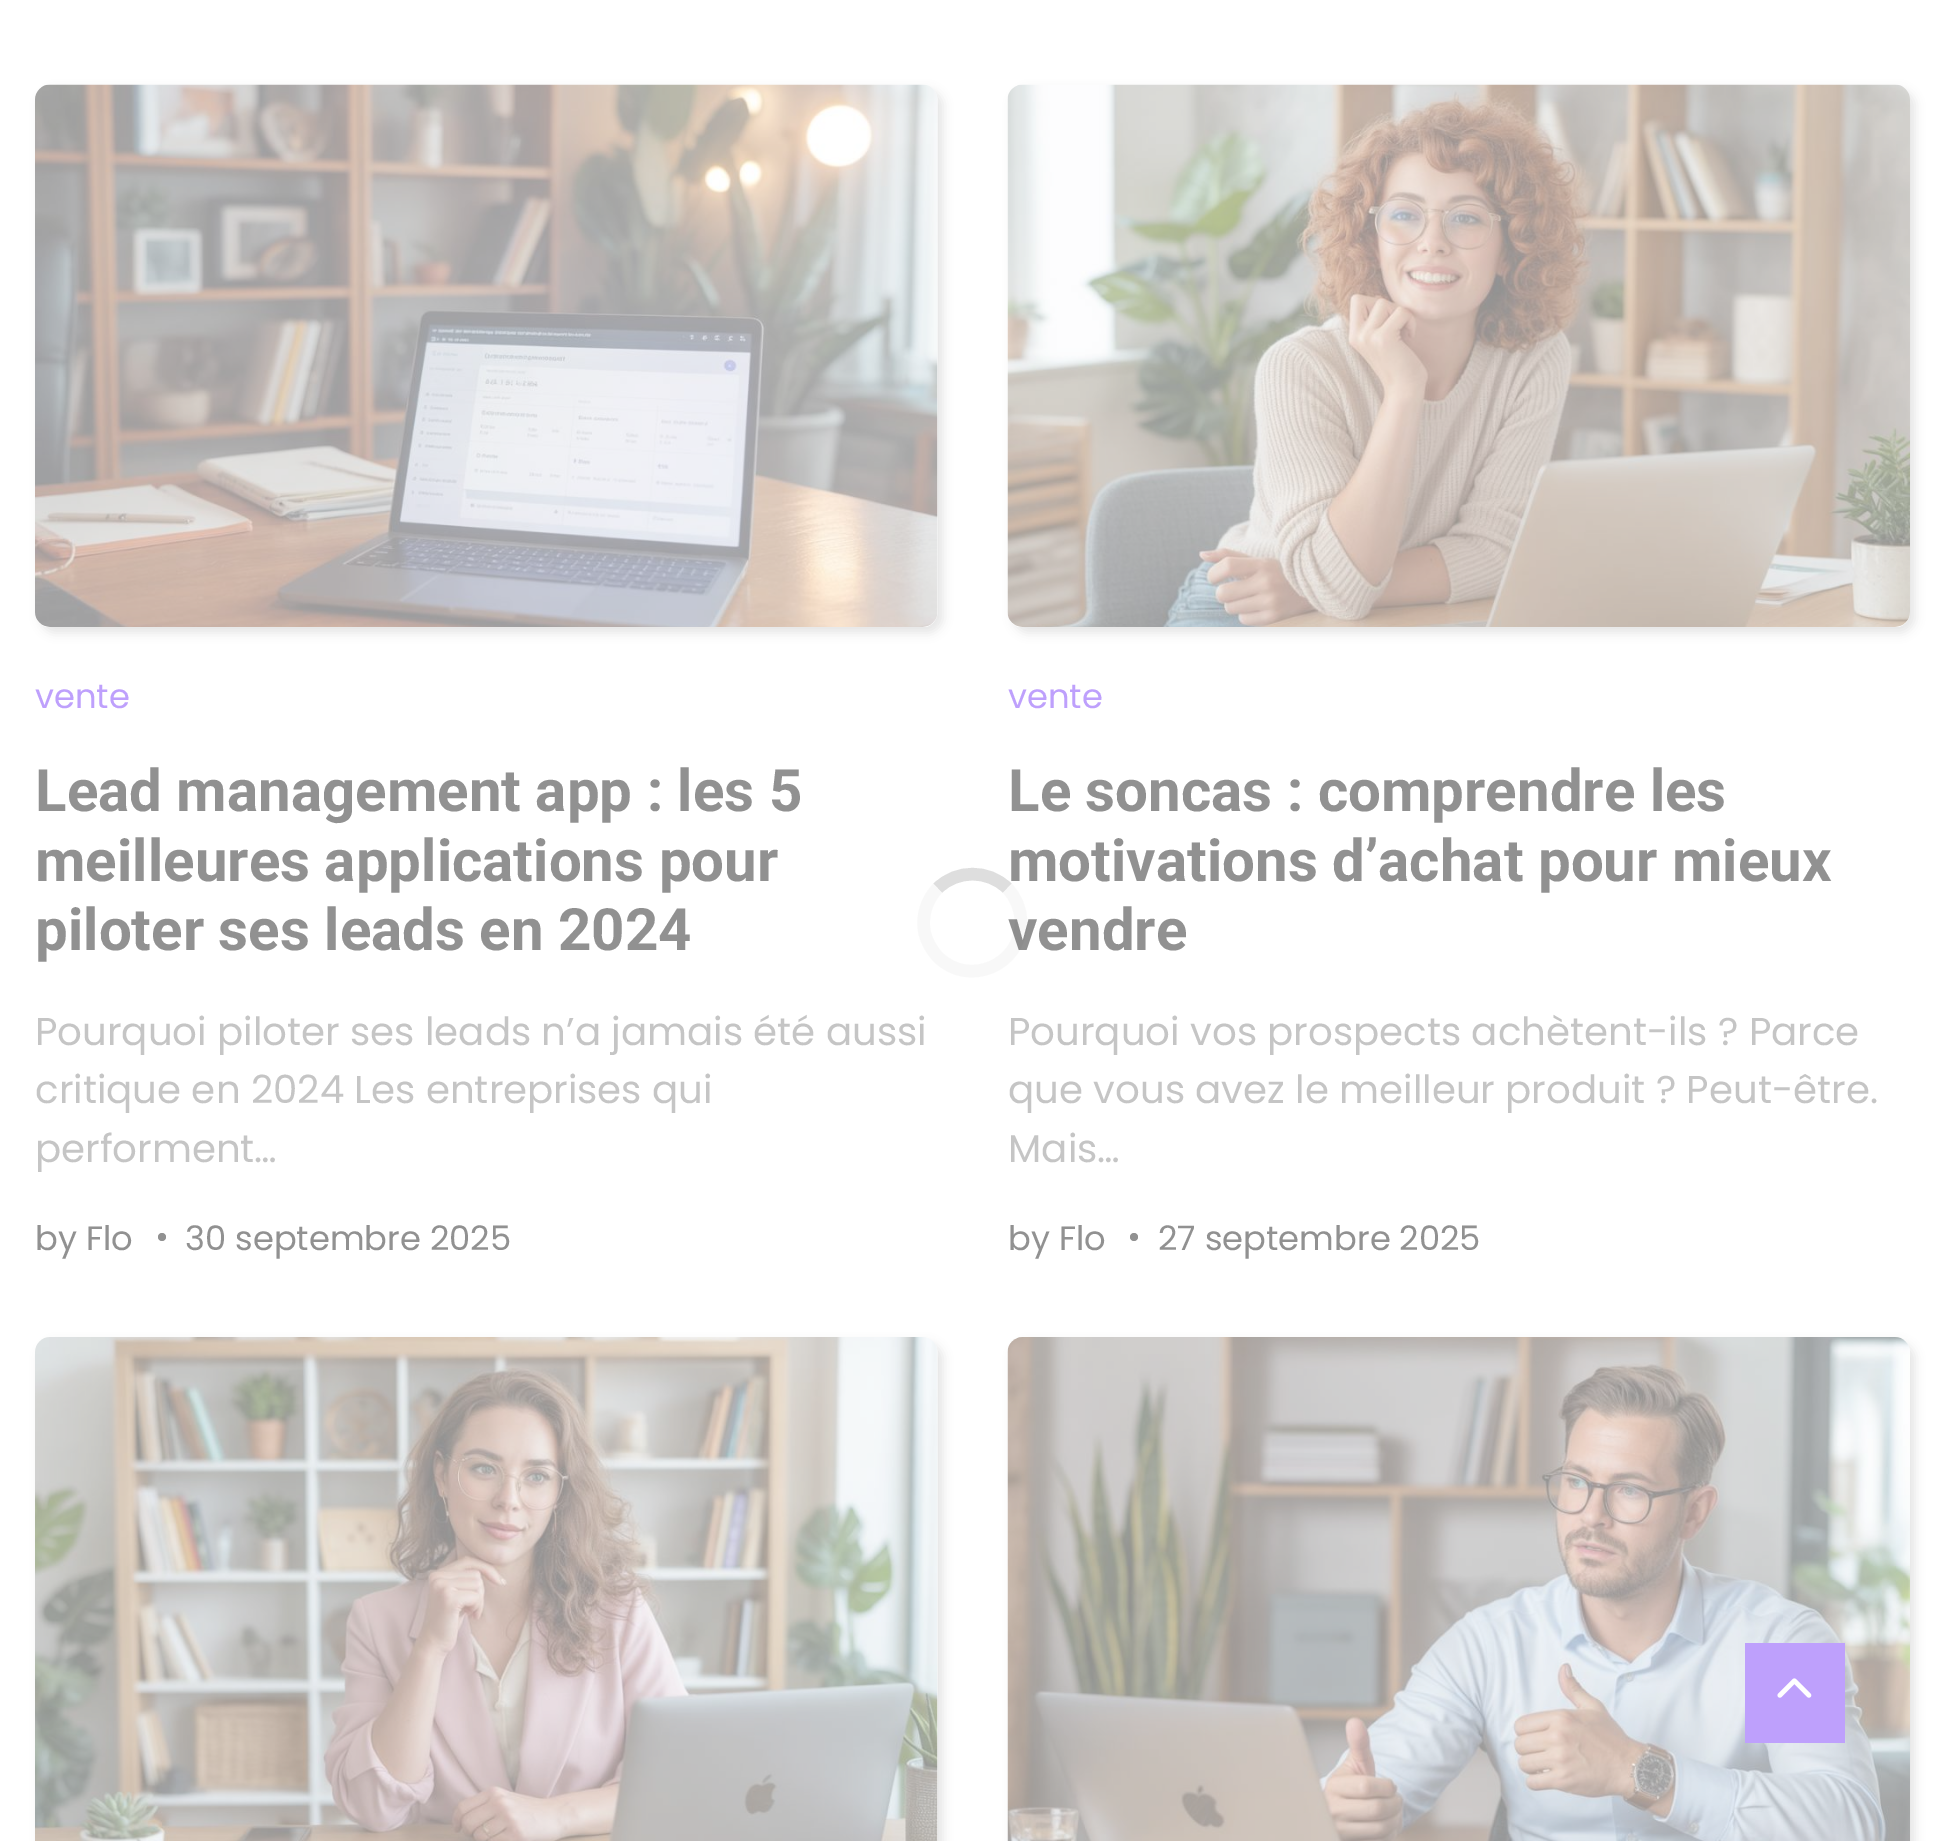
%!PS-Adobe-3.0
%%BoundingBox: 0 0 1945 1841
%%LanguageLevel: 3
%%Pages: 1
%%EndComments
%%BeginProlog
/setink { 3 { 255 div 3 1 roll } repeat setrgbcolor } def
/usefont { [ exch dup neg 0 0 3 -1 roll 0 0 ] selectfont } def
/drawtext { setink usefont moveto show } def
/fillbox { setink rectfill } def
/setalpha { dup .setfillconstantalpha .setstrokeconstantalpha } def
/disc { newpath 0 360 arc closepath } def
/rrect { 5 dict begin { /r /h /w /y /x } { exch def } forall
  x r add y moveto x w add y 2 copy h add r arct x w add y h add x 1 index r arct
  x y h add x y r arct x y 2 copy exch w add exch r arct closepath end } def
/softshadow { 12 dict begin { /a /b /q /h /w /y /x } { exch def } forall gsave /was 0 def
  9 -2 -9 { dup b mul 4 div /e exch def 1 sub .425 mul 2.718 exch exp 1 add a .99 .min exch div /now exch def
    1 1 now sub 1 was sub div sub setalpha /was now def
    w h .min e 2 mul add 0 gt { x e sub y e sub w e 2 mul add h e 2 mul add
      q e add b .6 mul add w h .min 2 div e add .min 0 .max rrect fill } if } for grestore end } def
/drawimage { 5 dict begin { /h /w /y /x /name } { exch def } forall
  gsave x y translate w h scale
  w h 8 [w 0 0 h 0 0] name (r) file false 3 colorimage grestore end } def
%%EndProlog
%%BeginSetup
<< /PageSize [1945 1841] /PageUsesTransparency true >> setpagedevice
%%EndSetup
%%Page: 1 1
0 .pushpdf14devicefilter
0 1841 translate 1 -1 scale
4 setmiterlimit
0 0 1945 1841 255 255 255 fillbox
200 200 200 setink
40 90 903 543 15 5 0.46 softshadow
(assets/img1.rgb) 35 84 903 543 drawimage
(vente) 35 708 /Poppins-Regular 33.75 190 160 252 drawtext
(Lead management app : les 5) 35 811 /Roboto-Bold 58.25 145 145 145 drawtext
(meilleures applications pour) 35 881 /Roboto-Bold 58.25 145 145 145 drawtext
(piloter ses leads en 2024) 35 950 /Roboto-Bold 58.25 145 145 145 drawtext
(Pourquoi piloter ses leads n’a jamais été aussi) 35 1045 /Poppins-Regular 38.75 197 197 197 drawtext
(critique en 2024 Les entreprises qui) 35 1103 /Poppins-Regular 38.75 197 197 197 drawtext
(performent…) 35 1162 /Poppins-Regular 38.75 197 197 197 drawtext
(by Flo) 35 1250 /Poppins-Regular 33.75 145 145 145 drawtext
162 1237 4 disc fill
(30 septembre 2025) 185 1250 /Poppins-Regular 33.75 145 145 145 drawtext
200 200 200 setink
1013 90 902 543 15 5 0.46 softshadow
(assets/img2.rgb) 1007 84 903 543 drawimage
(vente) 1008 708 /Poppins-Regular 33.75 190 160 252 drawtext
(Le soncas : comprendre les) 1008 811 /Roboto-Bold 58.25 145 145 145 drawtext
(motivations d’achat pour mieux) 1008 881 /Roboto-Bold 58.25 145 145 145 drawtext
(vendre) 1008 950 /Roboto-Bold 58.25 145 145 145 drawtext
(Pourquoi vos prospects achètent-ils ? Parce) 1008 1045 /Poppins-Regular 38.75 197 197 197 drawtext
(que vous avez le meilleur produit ? Peut-être.) 1008 1103 /Poppins-Regular 38.75 197 197 197 drawtext
(Mais…) 1008 1162 /Poppins-Regular 38.75 197 197 197 drawtext
(by Flo) 1008 1250 /Poppins-Regular 33.75 145 145 145 drawtext
1134 1237 4 disc fill
(27 septembre 2025) 1158 1250 /Poppins-Regular 33.75 145 145 145 drawtext
200 200 200 setink
40 1343 903 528 15 5 0.46 softshadow
(assets/img3.rgb) 35 1337 903 504 drawimage
1013 1343 902 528 15 5 0.46 softshadow
(assets/img4.rgb) 1007 1337 903 504 drawimage
222 222 222 setink
12.5 setlinewidth
938 888 moveto 957 869.5 988 869.5 1007 888 curveto stroke
0.03 setalpha
29 29 29 setink
1007 888 moveto 1016 897 1021 909.5 1021 922.5 curveto 1021 965.5 968.5 987.5 938 957 curveto 931.5 950 926.5 941.5 924.5 932 curveto 921.5 916 926.5 899.5 938 888 curveto stroke
1 setalpha
1745 1643 100 100 190 160 252 fillbox
(assets/img5.rgb) 1777 1678 35 20 drawimage
.poppdf14devicefilter showpage
%%EOF
